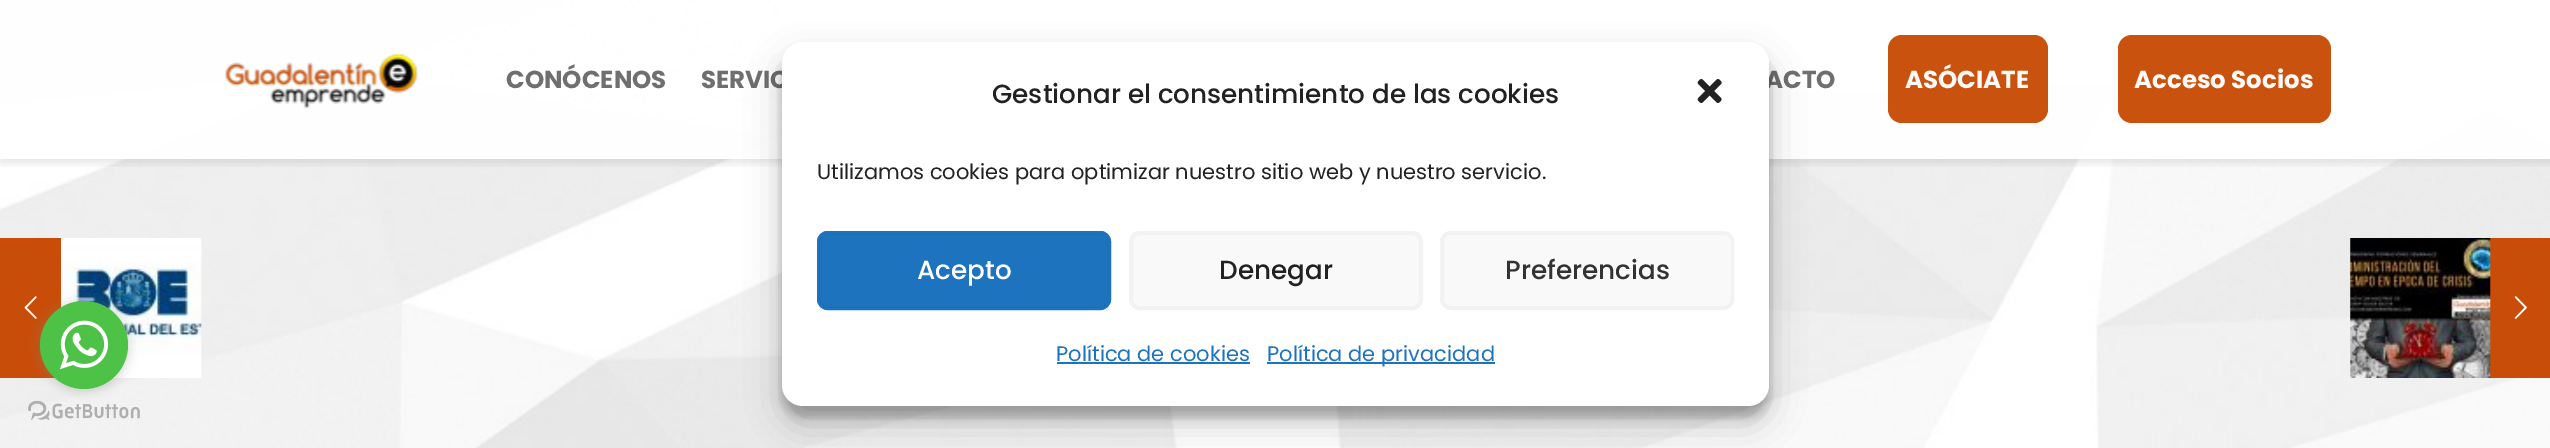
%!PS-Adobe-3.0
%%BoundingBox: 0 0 2550 448
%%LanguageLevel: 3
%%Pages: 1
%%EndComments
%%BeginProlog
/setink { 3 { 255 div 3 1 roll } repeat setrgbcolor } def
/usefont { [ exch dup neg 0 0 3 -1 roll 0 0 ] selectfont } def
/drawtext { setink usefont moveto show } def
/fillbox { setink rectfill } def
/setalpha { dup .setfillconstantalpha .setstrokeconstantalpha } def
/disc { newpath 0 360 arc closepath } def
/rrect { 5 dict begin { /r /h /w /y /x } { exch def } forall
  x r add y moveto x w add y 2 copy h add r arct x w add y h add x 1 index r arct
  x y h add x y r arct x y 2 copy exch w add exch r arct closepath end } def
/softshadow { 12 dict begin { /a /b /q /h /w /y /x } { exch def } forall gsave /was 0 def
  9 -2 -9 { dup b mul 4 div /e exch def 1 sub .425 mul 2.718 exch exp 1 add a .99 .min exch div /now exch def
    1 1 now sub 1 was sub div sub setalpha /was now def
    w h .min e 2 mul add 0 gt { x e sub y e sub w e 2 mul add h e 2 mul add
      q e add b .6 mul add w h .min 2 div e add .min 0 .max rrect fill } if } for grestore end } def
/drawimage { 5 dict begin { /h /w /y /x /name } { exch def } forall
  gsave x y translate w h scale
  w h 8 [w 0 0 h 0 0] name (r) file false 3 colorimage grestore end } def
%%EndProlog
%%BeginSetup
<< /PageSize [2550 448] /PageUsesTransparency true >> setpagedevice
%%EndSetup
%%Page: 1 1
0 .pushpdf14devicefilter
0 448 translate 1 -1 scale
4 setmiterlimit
0 0 2550 448 255 255 255 fillbox
(assets/img1.rgb) 0 0 2550 448 drawimage
gsave
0 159 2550 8 rectclip
0 0 0 setink
0 4 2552 159 0 4.5 0.1 softshadow
grestore
0.97 setalpha
0 0 2550 159 255 255 255 fillbox
1 setalpha
(assets/img2.rgb) 225 53 193 56 drawimage
(CONÓCENOS) 506 88 /Poppins-Bold 24.5 111 111 111 drawtext
(SERVIC) 701 88 /Poppins-Bold 24.5 111 111 111 drawtext
(ACTO) 1765 88 /Poppins-Bold 24.5 111 111 111 drawtext
201 82 15 setink
1888 35 160 88 14 rrect fill
(ASÓCIATE) 1905 88 /Poppins-Bold 24.5 253 250 248 drawtext
201 82 15 setink
2118 35 213 88 14 rrect fill
(Acceso Socios) 2134 88 /Poppins-Bold 24.5 253 250 248 drawtext
0 238 61 140 199 77 8 fillbox
(assets/img3.rgb) 24 296 13 23 drawimage
(assets/img4.rgb) 61 238 141 140 drawimage
0 0 0 setink
782 53 987 364 21 5 0.23 softshadow
782 60 987 364 21 17.5 0.19 softshadow
255 255 255 setink
782 42 987 364 21 rrect fill
(Gestionar el consentimiento de las cookies) 992 103 /Poppins-Medium 26.25 34 34 34 drawtext
(assets/img5.rgb) 1697 79 25 24 drawimage
(Utilizamos cookies para optimizar nuestro sitio web y nuestro servicio.) 817 179 /Poppins-Regular 21 34 34 34 drawtext
30 115 190 setink
817 231 294 79 11 rrect fill
29 112 184 setink
2 setlinewidth
820 234 289 73 8 rrect stroke
30 115 190 setink
818 232 292 77 10 rrect stroke
(Acepto) 917 279 /Poppins-Medium 26.25 255 255 255 drawtext
249 249 249 setink
1129 231 294 79 11 rrect fill
242 242 242 setink
1132 234 288 73 8 rrect stroke
1130 232 292 77 10 rrect stroke
(Denegar) 1219 279 /Poppins-Medium 26.25 34 34 34 drawtext
249 249 249 setink
1440 231 294 79 11 rrect fill
242 242 242 setink
1443 234 289 73 8 rrect stroke
1441 232 292 77 10 rrect stroke
(Preferencias) 1505 279 /Poppins-Medium 26.25 51 51 51 drawtext
(Política de cookies) 1056 361 /Poppins-Regular 21 30 115 190 drawtext
1057 362 193 2 30 115 190 fillbox
1267 362 228 2 30 115 190 fillbox
(Política de privacidad) 1267 361 /Poppins-Regular 21 30 115 190 drawtext
2490 238 60 140 199 77 8 fillbox
(assets/img6.rgb) 2350 238 141 140 drawimage
(assets/img7.rgb) 2514 296 13 23 drawimage
(assets/img9.rgb) 28 401 112 19 drawimage
136 136 136 setink
40 303 88 87 43.5 6 0.4 softshadow
77 194 71 setink
84 345 44 disc fill
(assets/img8.rgb) 60 320 49 50 drawimage
.poppdf14devicefilter showpage
%%EOF
